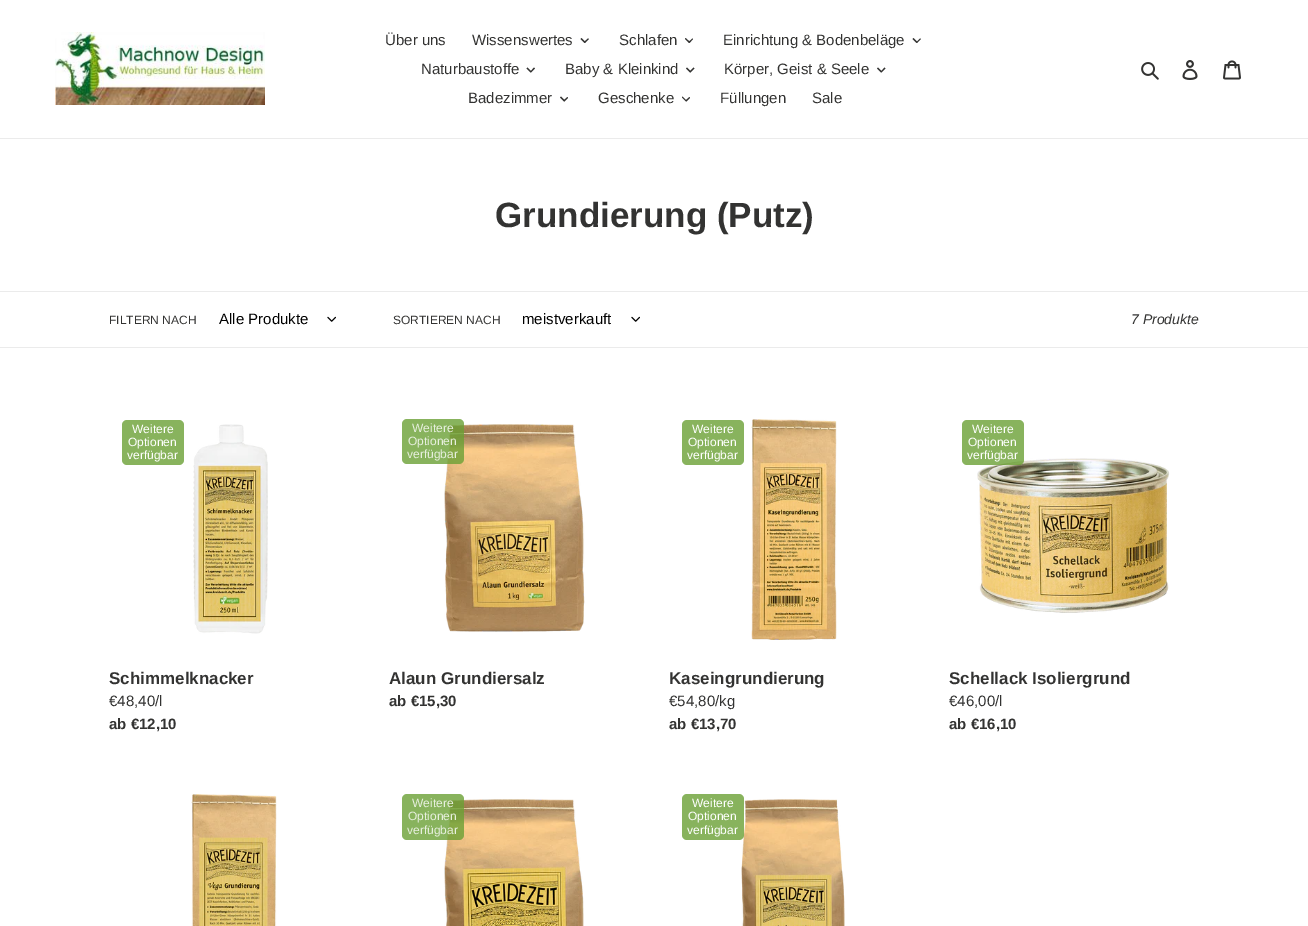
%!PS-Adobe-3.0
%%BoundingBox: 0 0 1308 926
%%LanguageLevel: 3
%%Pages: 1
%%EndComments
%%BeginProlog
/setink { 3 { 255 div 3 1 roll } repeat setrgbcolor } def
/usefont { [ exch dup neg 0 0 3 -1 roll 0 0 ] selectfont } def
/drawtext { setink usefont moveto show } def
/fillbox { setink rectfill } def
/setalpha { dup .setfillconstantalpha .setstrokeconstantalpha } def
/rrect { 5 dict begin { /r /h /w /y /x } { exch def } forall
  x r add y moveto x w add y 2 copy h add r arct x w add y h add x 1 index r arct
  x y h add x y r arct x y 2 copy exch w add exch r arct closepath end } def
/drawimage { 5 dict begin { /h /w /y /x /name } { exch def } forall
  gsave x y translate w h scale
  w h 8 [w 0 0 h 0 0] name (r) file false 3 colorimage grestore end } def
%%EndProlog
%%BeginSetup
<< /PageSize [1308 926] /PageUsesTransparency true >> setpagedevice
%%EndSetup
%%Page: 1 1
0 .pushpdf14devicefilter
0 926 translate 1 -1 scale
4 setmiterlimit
0 0 1308 926 255 255 255 fillbox
0 138 1308 1 235 235 235 fillbox
(assets/img1.rgb) 55 32 210 73 drawimage
(Über uns) 385 45 /LiberationSans-Regular 15 51 51 50 drawtext
(Wissenswertes) 472 45 /LiberationSans-Regular 15 51 51 50 drawtext
588 38.5 moveto 589 39 lineto 585 43 lineto 584 42 lineto closepath fill
581.5 38 moveto 585.5 42 lineto 584.5 43 lineto 580.5 39 lineto closepath fill
(Schlafen) 619 45 /LiberationSans-Regular 15 51 51 50 drawtext
692.5 38.5 moveto 693 39 lineto 689.5 43 lineto 688.5 42 lineto closepath fill
685.5 38 moveto 690 42 lineto 689 43 lineto 685 39 lineto closepath fill
(Einrichtung & Bodenbeläge) 723 45 /LiberationSans-Regular 15 51 51 50 drawtext
920 38.5 moveto 921 39 lineto 917 43 lineto 916.5 42 lineto closepath fill
913.5 38 moveto 917.5 42 lineto 916.5 43 lineto 912.5 39 lineto closepath fill
(Naturbaustoffe) 421 74 /LiberationSans-Regular 15 51 51 50 drawtext
534 67.5 moveto 535 68.5 lineto 531 72.5 lineto 530.5 71.5 lineto closepath fill
527.5 67.5 moveto 531.5 71.5 lineto 530.5 72.5 lineto 526.5 68.5 lineto closepath fill
(Baby & Kleinkind) 565 74 /LiberationSans-Regular 15 51 51 50 drawtext
693.5 67.5 moveto 694.5 68.5 lineto 690.5 72.5 lineto 689.5 71.5 lineto closepath fill
687 67.5 moveto 691 71.5 lineto 690 72.5 lineto 686 68.5 lineto closepath fill
(Körper, Geist & Seele) 724 74 /LiberationSans-Regular 15 51 51 50 drawtext
884.5 67.5 moveto 885.5 68.5 lineto 881.5 72.5 lineto 881 71.5 lineto closepath fill
878 67.5 moveto 882 71.5 lineto 881 72.5 lineto 877 68.5 lineto closepath fill
(Badezimmer) 468 103 /LiberationSans-Regular 15 51 51 50 drawtext
567.5 97 moveto 568 98 lineto 564.5 101.5 lineto 563.5 100.5 lineto closepath fill
561 96.5 moveto 565 100.5 lineto 564 101.5 lineto 560 97.5 lineto closepath fill
(Geschenke) 598 103 /LiberationSans-Regular 15 51 51 50 drawtext
689.5 97 moveto 690 98 lineto 686.5 101.5 lineto 685.5 100.5 lineto closepath fill
682.5 96.5 moveto 686.5 100.5 lineto 686 101.5 lineto 682 97.5 lineto closepath fill
(Füllungen) 720 103 /LiberationSans-Regular 15 51 51 50 drawtext
(Sale) 812 103 /LiberationSans-Regular 15 51 51 50 drawtext
(assets/img2.rgb) 1141 62 18 18 drawimage
(assets/img3.rgb) 1182 60 16 20 drawimage
(assets/img4.rgb) 1223 60 18 20 drawimage
(Grundierung \(Putz\)) 495 227 /LiberationSans-Bold 35 51 51 50 drawtext
0 291 1308 1 235 235 235 fillbox
0 347 1308 1 235 235 235 fillbox
(FILTERN NACH) 109 324 /LiberationSans-Regular 12 51 51 50 drawtext
(Alle Produkte) 219 324 /LiberationSans-Regular 15 0 0 0 drawtext
(assets/img5.rgb) 327 316 9 6 drawimage
(SORTIEREN NACH) 393 324 /LiberationSans-Regular 12 51 51 50 drawtext
(meistverkauft) 522 324 /LiberationSans-Regular 15 0 0 0 drawtext
(assets/img5.rgb) 631 316 9 6 drawimage
(7 Produkte) 1131 324 /LiberationSans-Italic 14 51 51 50 drawtext
136 179 93 setink
122 420 62 45 5 rrect fill
(Weitere) 132 433 /LiberationSans-Regular 12 255 255 255 drawtext
(Optionen) 128 446 /LiberationSans-Regular 12 255 255 255 drawtext
(verfügbar) 127 459 /LiberationSans-Regular 12 255 255 255 drawtext
(assets/img6.rgb) 193 424 75 210 drawimage
(Schimmelknacker) 109 684 /LiberationSans-Bold 17 51 51 50 drawtext
(€48,40/l) 109 706 /LiberationSans-Regular 15 51 51 50 drawtext
(ab €12,10) 109 729 /LiberationSans-Bold 15 51 51 50 drawtext
(assets/img7.rgb) 444 424 141 208 drawimage
0.8 setalpha
106 160 52 setink
402 419 62 45 5 rrect fill
1 setalpha
(Weitere) 412 432 /LiberationSans-Regular 12 231 239 222 drawtext
(Optionen) 408 445 /LiberationSans-Regular 12 231 239 222 drawtext
(verfügbar) 407 458 /LiberationSans-Regular 12 231 239 222 drawtext
(Alaun Grundiersalz) 389 684 /LiberationSans-Bold 17 51 51 50 drawtext
(ab €15,30) 389 706 /LiberationSans-Bold 15 51 51 50 drawtext
136 179 93 setink
682 420 62 45 5 rrect fill
(Weitere) 692 433 /LiberationSans-Regular 12 255 255 255 drawtext
(Optionen) 688 446 /LiberationSans-Regular 12 255 255 255 drawtext
(verfügbar) 687 459 /LiberationSans-Regular 12 255 255 255 drawtext
(assets/img8.rgb) 751 419 86 221 drawimage
(Kaseingrundierung) 669 684 /LiberationSans-Bold 17 51 51 50 drawtext
(€54,80/kg) 669 706 /LiberationSans-Regular 15 51 51 50 drawtext
(ab €13,70) 669 729 /LiberationSans-Bold 15 51 51 50 drawtext
(assets/img9.rgb) 977 458 193 155 drawimage
0.8 setalpha
106 160 52 setink
962 420 62 45 5 rrect fill
1 setalpha
(Weitere) 972 433 /LiberationSans-Regular 12 255 255 255 drawtext
(Optionen) 968 446 /LiberationSans-Regular 12 255 255 255 drawtext
(verfügbar) 967 459 /LiberationSans-Regular 12 255 255 255 drawtext
(Schellack Isoliergrund) 949 684 /LiberationSans-Bold 17 51 51 50 drawtext
(€46,00/l) 949 706 /LiberationSans-Regular 15 51 51 50 drawtext
(ab €16,10) 949 729 /LiberationSans-Bold 15 51 51 50 drawtext
(assets/img10.rgb) 191 794 86 132 drawimage
(assets/img11.rgb) 444 799 140 127 drawimage
0.8 setalpha
106 160 52 setink
402 794 62 46 5 rrect fill
1 setalpha
(Weitere) 412 807 /LiberationSans-Regular 12 231 239 222 drawtext
(Optionen) 408 820 /LiberationSans-Regular 12 231 239 222 drawtext
(verfügbar) 407 834 /LiberationSans-Regular 12 231 239 222 drawtext
(assets/img12.rgb) 741 799 104 127 drawimage
0.8 setalpha
106 160 52 setink
682 794 62 46 5 rrect fill
1 setalpha
(Weitere) 692 807 /LiberationSans-Regular 12 255 255 255 drawtext
(Optionen) 688 820 /LiberationSans-Regular 12 255 255 255 drawtext
(verfügbar) 687 834 /LiberationSans-Regular 12 255 255 255 drawtext
.poppdf14devicefilter showpage
%%EOF
